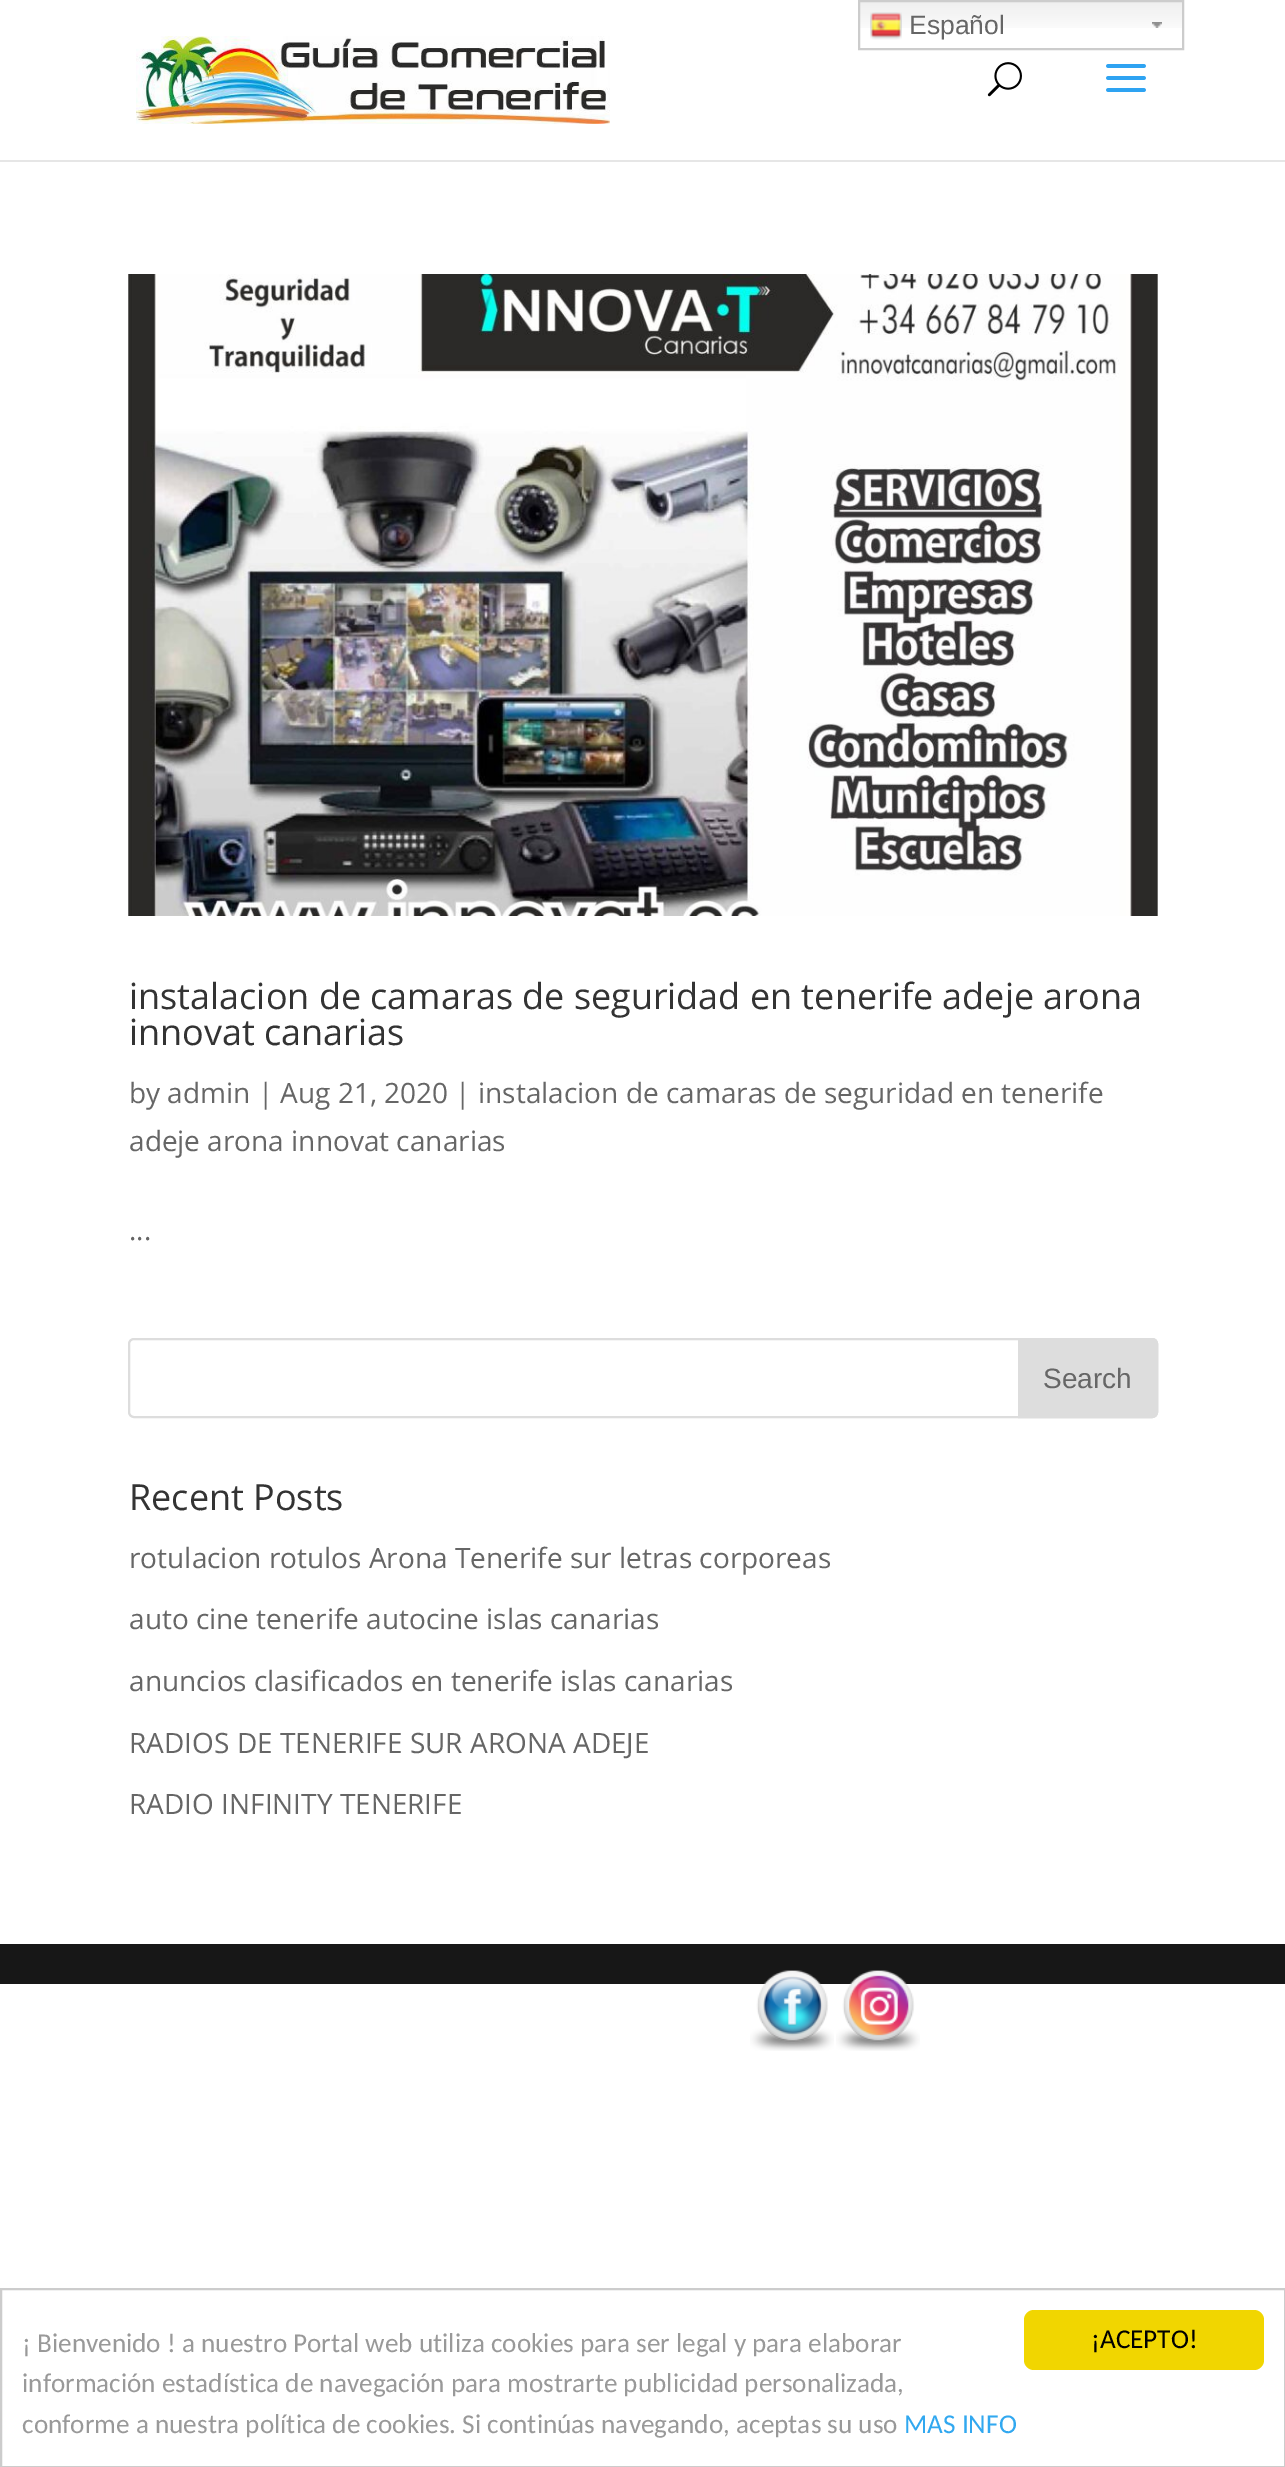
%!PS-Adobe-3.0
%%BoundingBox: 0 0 1285 2467
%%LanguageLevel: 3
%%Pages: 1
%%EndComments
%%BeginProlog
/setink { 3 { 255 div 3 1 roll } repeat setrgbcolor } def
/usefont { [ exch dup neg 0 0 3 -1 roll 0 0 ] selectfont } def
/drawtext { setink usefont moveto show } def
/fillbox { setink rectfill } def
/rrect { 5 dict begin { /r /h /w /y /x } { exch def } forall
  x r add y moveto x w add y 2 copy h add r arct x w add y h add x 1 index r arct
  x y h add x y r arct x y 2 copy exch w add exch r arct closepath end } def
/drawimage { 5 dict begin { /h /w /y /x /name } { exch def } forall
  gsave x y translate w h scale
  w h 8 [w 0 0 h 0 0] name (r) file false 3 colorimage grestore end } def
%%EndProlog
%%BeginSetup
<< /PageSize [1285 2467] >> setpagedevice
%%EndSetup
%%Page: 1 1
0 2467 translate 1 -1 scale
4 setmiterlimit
0 0 1285 2467 255 255 255 fillbox
(assets/img1.rgb) 860 2 322 26 drawimage
(assets/img2.rgb) 1152 22 10 6 drawimage
204 204 204 setink
2 setlinewidth
859 1 324 48 rectstroke
(assets/img3.rgb) 870 12 32 28 drawimage
(Español) 909 34 /LiberationSans-Regular 26.5 102 102 102 drawtext
0 160 1285 2 230 230 230 fillbox
(assets/img4.rgb) 136 36 474 88 drawimage
(assets/img5.rgb) 987 62 35 35 drawimage
(assets/img6.rgb) 1106 64 40 28 drawimage
(assets/img7.rgb) 128 274 1030 642 drawimage
(instalacion de camaras de seguridad en tenerife adeje arona) 129 1009 /OpenSans-Regular 36 51 51 51 drawtext
(innovat canarias) 129 1045 /OpenSans-Regular 36 51 51 51 drawtext
(by admin | Aug 21, 2020 | instalacion de camaras de seguridad en tenerife) 129 1103 /OpenSans-Regular 28 102 102 102 drawtext
(adeje arona innovat canarias) 129 1151 /OpenSans-Regular 28 102 102 102 drawtext
(...) 129 1240 /OpenSans-Regular 28 102 102 102 drawtext
221 221 221 setink
129 1339 1028 78 5 rrect stroke
1019 1339 moveto 1152 1339 lineto 1155 1339 1157 1341 1157 1344 curveto 1157 1412 lineto 1157 1415 1155 1417 1152 1417 curveto 1019 1417 lineto closepath gsave fill grestore
stroke
(Search) 1043 1388 /LiberationSans-Regular 28 102 102 102 drawtext
(Recent Posts) 129 1510 /OpenSans-Regular 36 51 51 51 drawtext
(rotulacion rotulos Arona Tenerife sur letras corporeas) 129 1568 /OpenSans-Regular 28 102 102 102 drawtext
(auto cine tenerife autocine islas canarias) 129 1629 /OpenSans-Regular 28 102 102 102 drawtext
(anuncios clasificados en tenerife islas canarias) 129 1691 /OpenSans-Regular 28 102 102 102 drawtext
(RADIOS DE TENERIFE SUR ARONA ADEJE) 129 1753 /OpenSans-Regular 28 102 102 102 drawtext
(RADIO INFINITY TENERIFE) 129 1814 /OpenSans-Regular 28 102 102 102 drawtext
0 1944 1285 40 23 23 23 fillbox
(assets/img8.rgb) 750 1970 84 81 drawimage
(assets/img9.rgb) 836 1970 84 81 drawimage
204 204 204 setink
1 2289 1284 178 rectstroke
(¡ Bienvenido ! a nuestro Portal web utiliza cookies para ser legal y para elaborar) 22 2352 /Carlito-Regular 27.2 153 153 153 drawtext
(información estadística de navegación para mostrarte publicidad personalizada,) 22 2392 /Carlito-Regular 27.2 153 153 153 drawtext
(conforme a nuestra política de cookies. Si continúas navegando, aceptas su uso) 22 2433 /Carlito-Regular 27.2 153 153 153 drawtext
(MAS INFO) 904 2433 /Carlito-Regular 27.2 49 168 240 drawtext
241 214 0 setink
1024 2310 240 60 10 rrect fill
(¡ACEPTO!) 1091 2348 /Carlito-Regular 27.2 0 0 0 drawtext
showpage
%%EOF
